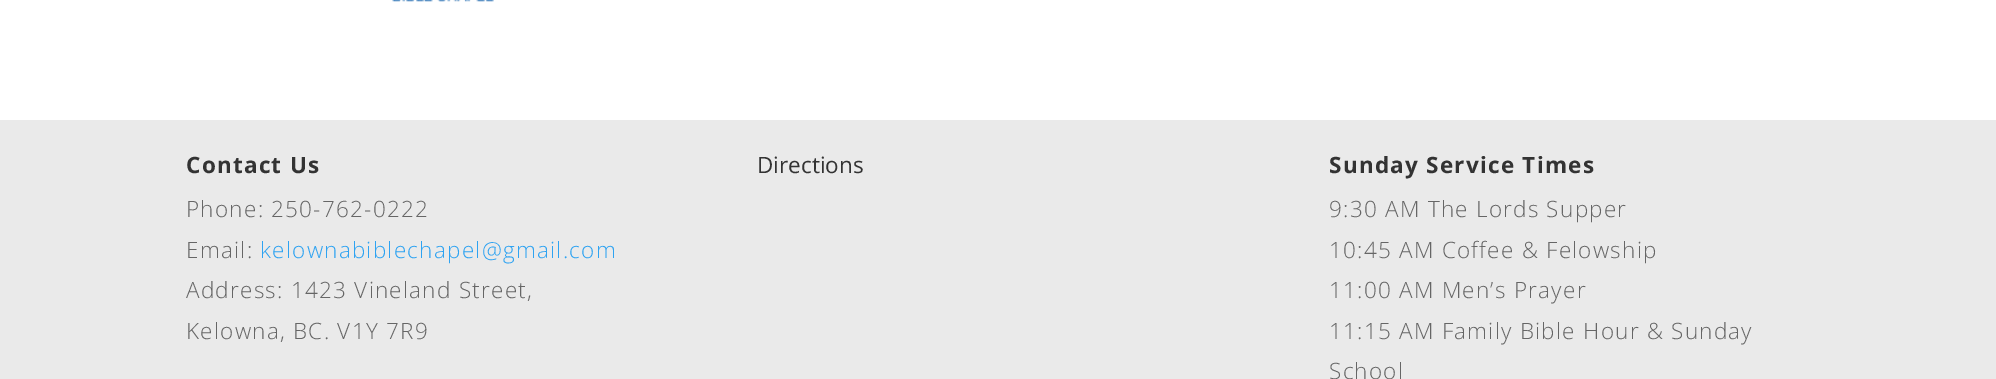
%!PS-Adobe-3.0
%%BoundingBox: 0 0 1996 379
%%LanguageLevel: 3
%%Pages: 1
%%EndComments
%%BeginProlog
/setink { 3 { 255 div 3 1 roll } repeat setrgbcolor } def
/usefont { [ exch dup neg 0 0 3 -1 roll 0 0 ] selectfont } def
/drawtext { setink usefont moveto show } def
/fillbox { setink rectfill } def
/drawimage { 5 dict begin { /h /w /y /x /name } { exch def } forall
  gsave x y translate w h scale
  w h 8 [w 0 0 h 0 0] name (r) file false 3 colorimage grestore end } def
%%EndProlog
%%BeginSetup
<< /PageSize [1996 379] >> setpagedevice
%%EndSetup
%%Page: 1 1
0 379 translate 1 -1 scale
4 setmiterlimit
0 0 1996 379 255 255 255 fillbox
(assets/img1.rgb) 392 0 102 2 drawimage
0 120 1996 259 234 234 234 fillbox
/OpenSans-Bold 22.5 usefont
51 51 51 setink
186 173 moveto 1.25 0 (Contact Us) ashow
/OpenSans-Light 22.5 usefont
102 102 102 setink
186 217 moveto 1.25 0 (Phone: 250-762-0222) ashow
186 258 moveto 1.25 0 (Email:) ashow
46 163 242 setink
260 258 moveto 1.25 0 (kelownabiblechapel@gmail.com) ashow
102 102 102 setink
186 298 moveto 1.25 0 (Address: 1423 Vineland Street,) ashow
186 339 moveto 1.25 0 (Kelowna, BC. V1Y 7R9) ashow
(Directions) 757 173 /OpenSans-Regular 22.5 51 51 51 drawtext
/OpenSans-Bold 22.5 usefont
1329 173 moveto 1.25 0 (Sunday Service Times) ashow
/OpenSans-Light 22.5 usefont
102 102 102 setink
1329 217 moveto 1.25 0 (9:30 AM The Lords Supper) ashow
1329 258 moveto 1.25 0 (10:45 AM Coffee & Felowship) ashow
1329 298 moveto 1.25 0 (11:00 AM Men’s Prayer) ashow
1329 339 moveto 1.25 0 (11:15 AM Family Bible Hour & Sunday) ashow
1329 379 moveto 1.25 0 (School) ashow
showpage
%%EOF
